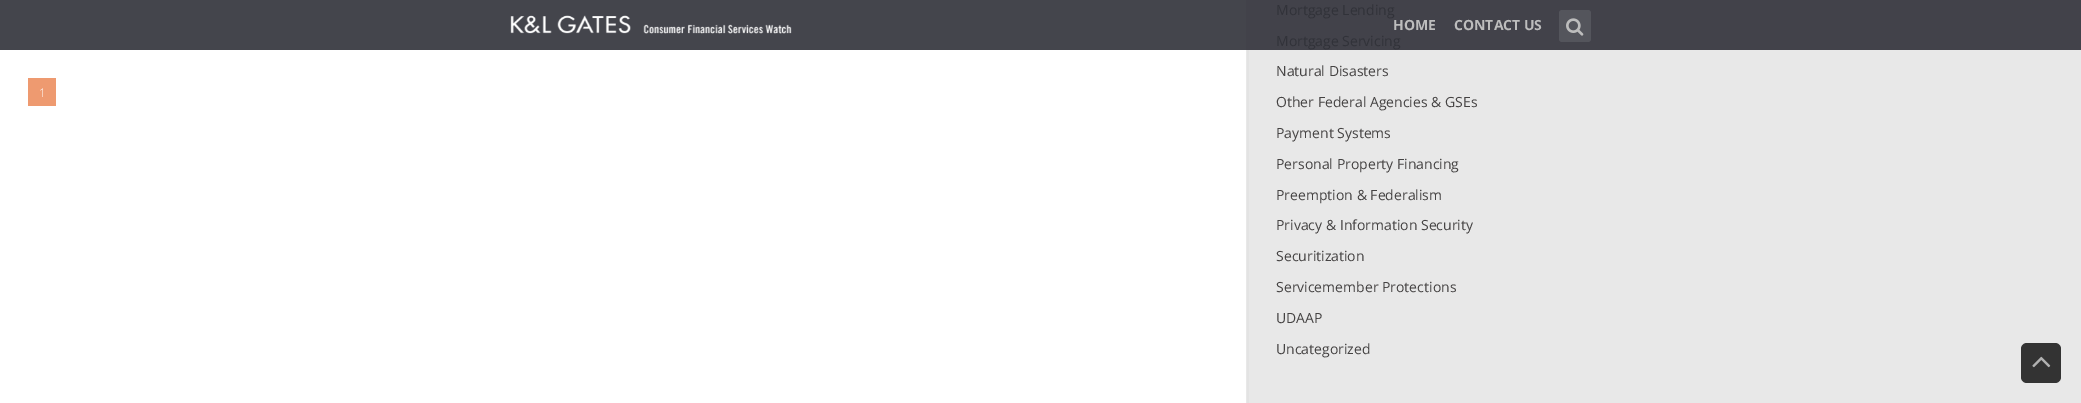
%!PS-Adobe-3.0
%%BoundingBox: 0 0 2081 403
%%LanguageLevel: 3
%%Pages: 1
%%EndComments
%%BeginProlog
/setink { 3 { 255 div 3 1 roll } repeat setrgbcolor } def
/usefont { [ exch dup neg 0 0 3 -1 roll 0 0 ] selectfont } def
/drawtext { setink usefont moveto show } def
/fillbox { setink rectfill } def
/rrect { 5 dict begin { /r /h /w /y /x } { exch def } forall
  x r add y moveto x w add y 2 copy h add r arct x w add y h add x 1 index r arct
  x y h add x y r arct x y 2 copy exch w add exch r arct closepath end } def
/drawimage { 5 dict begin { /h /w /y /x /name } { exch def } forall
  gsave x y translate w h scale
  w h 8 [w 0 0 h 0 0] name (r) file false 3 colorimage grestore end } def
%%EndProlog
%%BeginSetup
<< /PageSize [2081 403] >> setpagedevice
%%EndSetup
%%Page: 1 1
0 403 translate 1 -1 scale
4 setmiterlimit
0 0 2081 403 255 255 255 fillbox
0 0 1246 50 68 69 76 fillbox
28 78 28 28 238 154 112 fillbox
(1) 39 97 /OpenSans-Light 12 255 255 255 drawtext
1246 50 835 353 232 232 232 fillbox
1246 0 835 50 66 66 74 fillbox
1247 50 2 353 227 227 227 fillbox
(Mortgage Lending) 1276 15 /OpenSans-Regular 14 49 50 57 drawtext
(Mortgage Servicing) 1276 46 /OpenSans-Regular 14 49 50 57 drawtext
(Natural Disasters) 1276 76 /OpenSans-Regular 14 69 67 67 drawtext
(Other Federal Agencies & GSEs) 1276 107 /OpenSans-Regular 14 69 67 67 drawtext
(Payment Systems) 1276 138 /OpenSans-Regular 14 69 67 67 drawtext
(Personal Property Financing) 1276 169 /OpenSans-Regular 14 69 67 67 drawtext
(Preemption & Federalism) 1276 200 /OpenSans-Regular 14 69 67 67 drawtext
(Privacy & Information Security) 1276 230 /OpenSans-Regular 14 69 67 67 drawtext
(Securitization) 1276 261 /OpenSans-Regular 14 69 67 67 drawtext
(Servicemember Protections) 1276 292 /OpenSans-Regular 14 69 67 67 drawtext
(UDAAP) 1276 323 /OpenSans-Regular 14 69 67 67 drawtext
(Uncategorized) 1276 354 /OpenSans-Regular 14 69 67 67 drawtext
(assets/img1.rgb) 510 15 282 19 drawimage
(HOME) 1393 30 /OpenSans-Bold 14 189 189 189 drawtext
(CONTACT US) 1454 30 /OpenSans-Bold 14 189 189 189 drawtext
84 85 92 setink
1559 10 32 32 3 rrect fill
(assets/img2.rgb) 1566 18 18 18 drawimage
51 51 51 setink
2021 343 40 40 6 rrect fill
(assets/img3.rgb) 2032 356 19 12 drawimage
showpage
%%EOF
